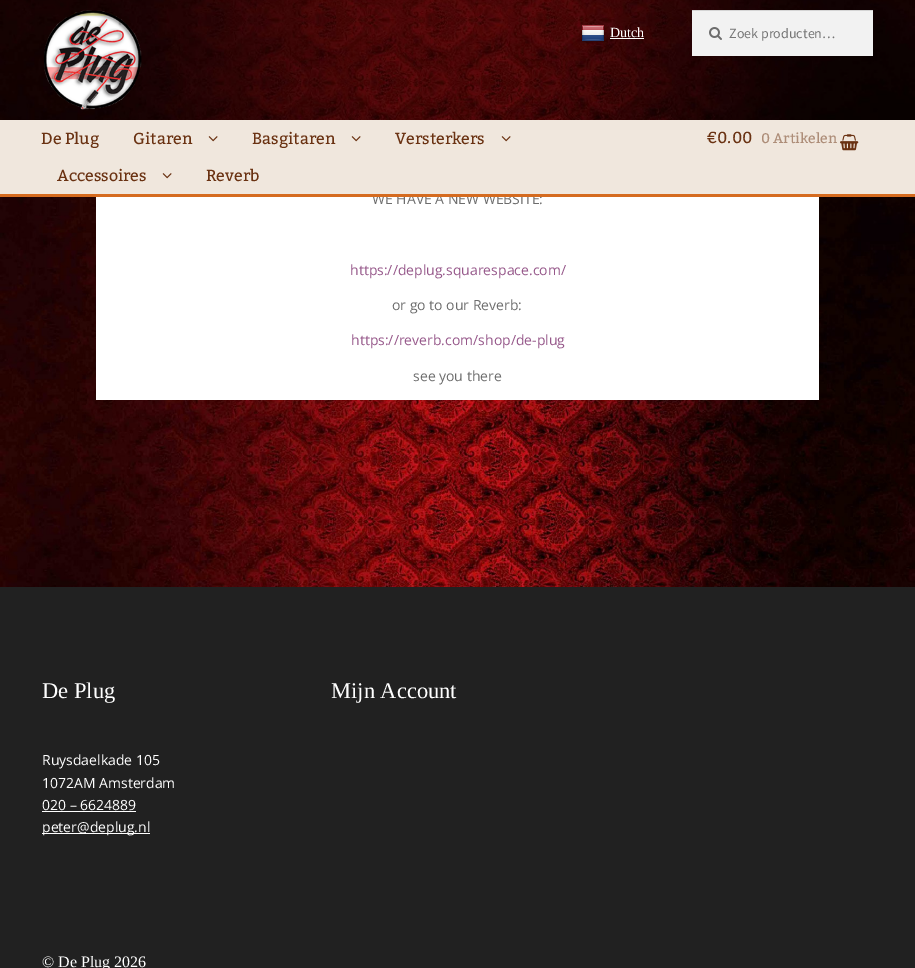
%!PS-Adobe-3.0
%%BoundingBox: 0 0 915 968
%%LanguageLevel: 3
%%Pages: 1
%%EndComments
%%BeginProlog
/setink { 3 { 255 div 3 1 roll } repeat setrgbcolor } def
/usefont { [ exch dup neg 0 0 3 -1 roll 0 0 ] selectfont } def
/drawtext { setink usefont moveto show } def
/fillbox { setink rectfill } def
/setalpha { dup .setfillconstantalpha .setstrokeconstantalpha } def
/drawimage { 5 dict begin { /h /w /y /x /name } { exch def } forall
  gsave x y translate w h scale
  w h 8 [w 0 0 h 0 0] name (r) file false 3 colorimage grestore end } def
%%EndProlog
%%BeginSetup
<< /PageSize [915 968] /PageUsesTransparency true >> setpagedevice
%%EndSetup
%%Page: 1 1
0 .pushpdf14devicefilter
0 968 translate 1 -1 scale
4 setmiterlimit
0 0 915 968 255 255 255 fillbox
(assets/img1.rgb) 0 0 915 587 drawimage
0.5 setalpha
0 0 915 120 0 0 0 fillbox
1 setalpha
(assets/img2.rgb) 44 10 98 100 drawimage
(assets/img3.rgb) 581 25 24 18 drawimage
(Dutch) 610 37 /LiberationSerif-Regular 14 255 255 255 drawtext
610 38 34 1 255 255 255 fillbox
692 11 181 45 242 242 242 fillbox
(assets/img4.rgb) 709 27 13 13 drawimage
692 10 181 1 212 212 212 fillbox
(Zoek producten…) 729 38 /SourceSansPro-Regular 14 117 117 117 drawtext
96 197 723 203 255 255 255 fillbox
(WE HAVE A NEW WEBSITE:) 372 204 /OpenSans-Regular 14 109 109 109 drawtext
0 120 915 74 240 231 221 fillbox
0 194 915 3 213 107 31 fillbox
(De Plug) 41 144 /Kadwa-Regular 16 106 50 18 drawtext
(Gitaren) 133 144 /Kadwa-Regular 16 106 50 18 drawtext
(assets/img5.rgb) 208 136 10 6 drawimage
(Basgitaren) 252 144 /Kadwa-Regular 16 106 50 18 drawtext
(assets/img5.rgb) 351 136 10 6 drawimage
(Versterkers) 395 144 /Kadwa-Regular 16 106 50 18 drawtext
(assets/img5.rgb) 501 136 10 6 drawimage
(Accessoires) 57 181 /Kadwa-Regular 16 106 50 18 drawtext
(assets/img5.rgb) 162 173 10 6 drawimage
(Reverb) 206 181 /Kadwa-Regular 16 106 50 18 drawtext
(€0.00) 707 143 /Kadwa-Regular 16 106 50 18 drawtext
(0 Artikelen) 761 143 /Kadwa-Regular 14 173 141 120 drawtext
(assets/img6.rgb) 840 134 19 17 drawimage
(https://deplug.squarespace.com/) 350 275 /OpenSans-Regular 14 150 88 138 drawtext
(or go to our Reverb:) 392 310 /OpenSans-Regular 14 109 109 109 drawtext
(https://reverb.com/shop/de-plug) 351 345 /OpenSans-Regular 14 150 88 138 drawtext
(see you there) 413 381 /OpenSans-Regular 14 109 109 109 drawtext
0 587 915 381 33 33 33 fillbox
(De Plug) 42 698 /LiberationSerif-Regular 22.5 255 255 255 drawtext
(Ruysdaelkade 105) 42 765 /OpenSans-Regular 14 255 255 255 drawtext
(1072AM Amsterdam) 42 788 /OpenSans-Regular 14 255 255 255 drawtext
(020 – 6624889) 42 810 /OpenSans-Regular 14 255 255 255 drawtext
42 811 94 1 255 255 255 fillbox
42 833 108 1 255 255 255 fillbox
(peter@deplug.nl) 42 832 /OpenSans-Regular 14 255 255 255 drawtext
(Mijn Account) 331 698 /LiberationSerif-Regular 22.5 255 255 255 drawtext
(© De Plug 2026) 42 967 /LiberationSerif-Regular 16 255 255 255 drawtext
.poppdf14devicefilter showpage
%%EOF
